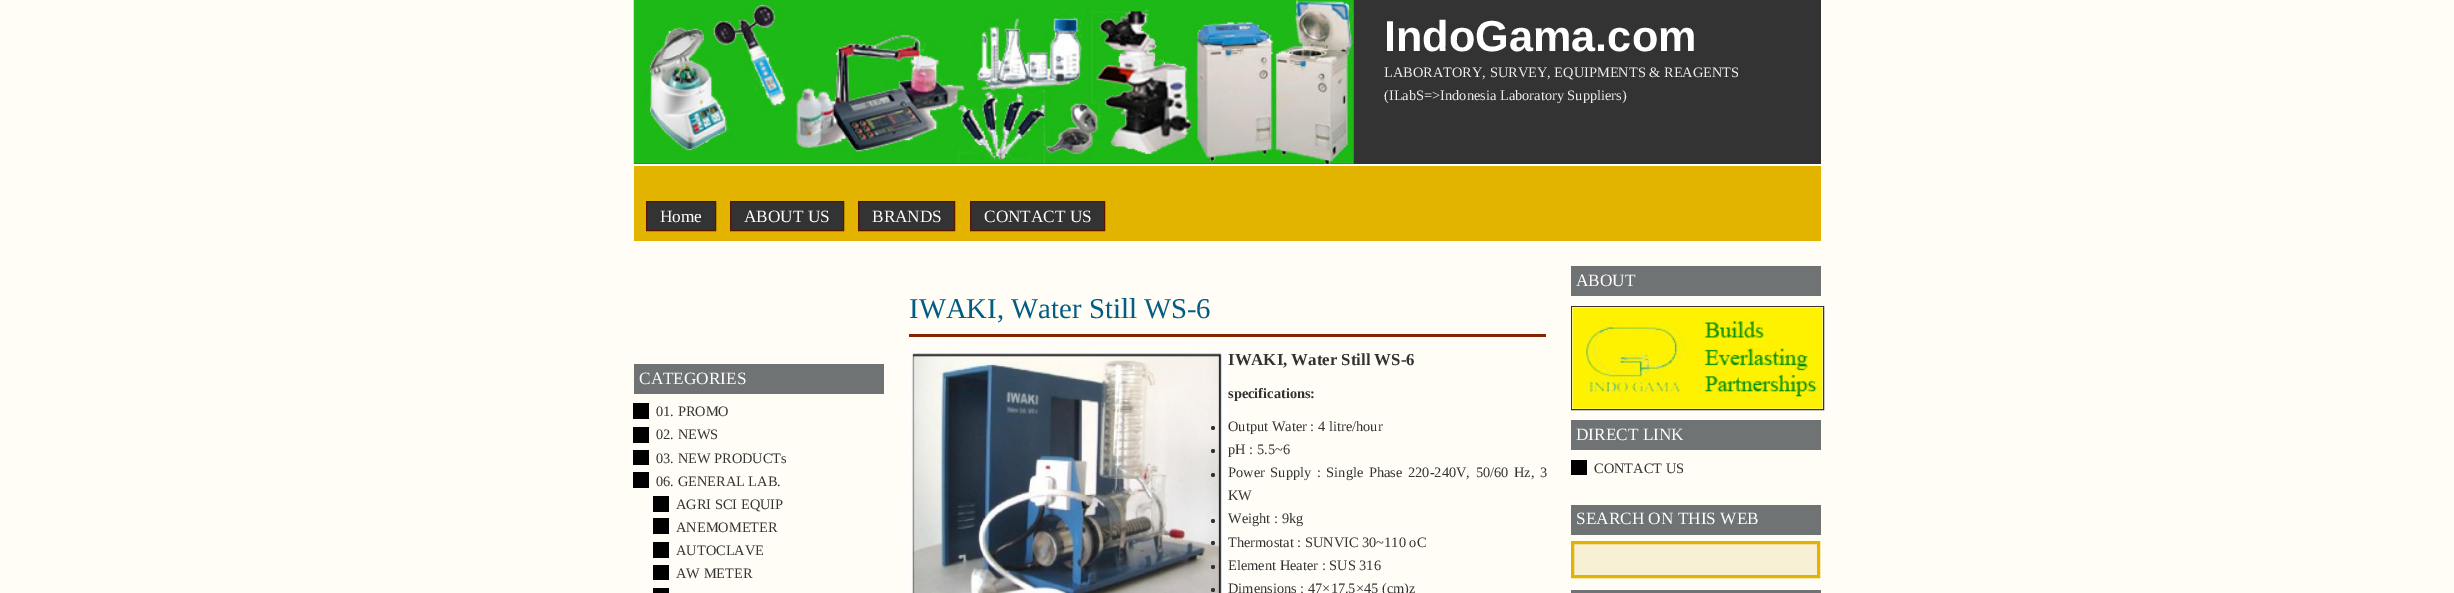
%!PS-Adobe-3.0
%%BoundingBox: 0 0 2454 593
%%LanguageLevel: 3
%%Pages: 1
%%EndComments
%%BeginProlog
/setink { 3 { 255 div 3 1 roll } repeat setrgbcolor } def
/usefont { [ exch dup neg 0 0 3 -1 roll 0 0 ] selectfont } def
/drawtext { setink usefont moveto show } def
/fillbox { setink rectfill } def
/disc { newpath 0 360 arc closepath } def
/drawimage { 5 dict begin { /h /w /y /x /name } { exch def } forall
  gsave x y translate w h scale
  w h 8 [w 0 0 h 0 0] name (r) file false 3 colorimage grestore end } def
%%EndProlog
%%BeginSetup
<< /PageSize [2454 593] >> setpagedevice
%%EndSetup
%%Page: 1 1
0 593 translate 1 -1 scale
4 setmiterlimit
0 0 2454 593 255 253 246 fillbox
634 0 1187 164 51 51 51 fillbox
634 164 1187 2 255 255 255 fillbox
(assets/img1.rgb) 633 0 721 164 drawimage
(IndoGama.com) 1384 51 /LiberationSans-Bold 43.25 255 255 255 drawtext
(LABORATORY, SURVEY, EQUIPMENTS & REAGENTS) 1384 77 /LiberationSerif-Regular 14.4 239 239 239 drawtext
(\(ILabS=>Indonesia Laboratory Suppliers\)) 1384 100 /LiberationSerif-Regular 14.4 239 239 239 drawtext
634 166 1187 75 226 180 0 fillbox
51 51 51 setink
646.5 201.5 moveto 715.5 201.5 lineto 715.5 230.5 lineto 646.5 230.5 lineto closepath gsave fill grestore
90 19 1 setink
stroke
(Home) 660 222 /LiberationSerif-Regular 17.25 255 255 255 drawtext
51 51 51 setink
730.5 201.5 moveto 843.5 201.5 lineto 843.5 230.5 lineto 730.5 230.5 lineto closepath gsave fill grestore
90 19 1 setink
stroke
(ABOUT US) 744 222 /LiberationSerif-Regular 17.25 255 255 255 drawtext
51 51 51 setink
858.5 201.5 moveto 954.5 201.5 lineto 954.5 230.5 lineto 858.5 230.5 lineto closepath gsave fill grestore
90 19 1 setink
stroke
(BRANDS) 872 222 /LiberationSerif-Regular 17.25 255 255 255 drawtext
51 51 51 setink
970.5 201.5 moveto 1104.5 201.5 lineto 1104.5 230.5 lineto 970.5 230.5 lineto closepath gsave fill grestore
90 19 1 setink
stroke
(CONTACT US) 984 222 /LiberationSerif-Regular 17.25 255 255 255 drawtext
634 364 250 30 111 115 116 fillbox
(CATEGORIES) 639 384 /LiberationSerif-Regular 17.25 255 255 255 drawtext
(01. PROMO) 656 416 /LiberationSerif-Regular 14.4 51 51 51 drawtext
633 403 16 16 0 0 0 fillbox
(02. NEWS) 656 439 /LiberationSerif-Regular 14.4 51 51 51 drawtext
633 427 16 16 0 0 0 fillbox
(03. NEW PRODUCTs) 656 463 /LiberationSerif-Regular 14.4 51 51 51 drawtext
633 450 16 15 0 0 0 fillbox
(06. GENERAL LAB.) 656 486 /LiberationSerif-Regular 14.4 51 51 51 drawtext
633 472 16 16 0 0 0 fillbox
(AGRI SCI EQUIP) 676 509 /LiberationSerif-Regular 14.4 51 51 51 drawtext
653 496 16 16 0 0 0 fillbox
(ANEMOMETER) 676 532 /LiberationSerif-Regular 14.4 51 51 51 drawtext
653 518 16 16 0 0 0 fillbox
(AUTOCLAVE) 676 555 /LiberationSerif-Regular 14.4 51 51 51 drawtext
653 542 16 16 0 0 0 fillbox
(AW METER) 676 578 /LiberationSerif-Regular 14.4 51 51 51 drawtext
653 565 16 15 0 0 0 fillbox
653 588 16 5 0 0 0 fillbox
(IWAKI, Water Still WS-6) 909 318 /LiberationSerif-Regular 28.75 1 93 130 drawtext
909 334 637 3 130 38 1 fillbox
(assets/img2.rgb) 909 349 319 244 drawimage
(IWAKI, Water Still WS-6) 1228 365 /LiberationSerif-Bold 16.8 51 51 51 drawtext
(specifications:) 1228 398 /LiberationSerif-Bold 14.4 51 51 51 drawtext
1213 428 2 disc fill
(Output Water : 4 litre/hour) 1228 431 /LiberationSerif-Regular 14.4 51 51 51 drawtext
1213 451 2 disc fill
(pH : 5.5~6) 1228 454 /LiberationSerif-Regular 14.4 51 51 51 drawtext
1213 475 2 disc fill
1228 477 moveto 2 0 32 (Power Supply : Single Phase 220-240V, 50/60 Hz, 3) widthshow
(KW) 1228 500 /LiberationSerif-Regular 14.4 51 51 51 drawtext
1213 521 2 disc fill
(Weight : 9kg) 1228 523 /LiberationSerif-Regular 14.4 51 51 51 drawtext
1213 543 2 disc fill
(Thermostat : SUNVIC 30~110 oC) 1228 547 /LiberationSerif-Regular 14.4 51 51 51 drawtext
1213 567 2 disc fill
(Element Heater : SUS 316) 1228 570 /LiberationSerif-Regular 14.4 51 51 51 drawtext
1213 590 2 disc fill
(Dimensions : 47×17.5×45 \(cm\)z) 1228 593 /LiberationSerif-Regular 14.4 51 51 51 drawtext
1571 266 250 30 111 115 116 fillbox
(ABOUT) 1576 286 /LiberationSerif-Regular 17.25 255 255 255 drawtext
51 51 51 setink
1571.5 306.5 252 103 rectstroke
(assets/img3.rgb) 1572 307 251 102 drawimage
1571 420 250 30 111 115 116 fillbox
(DIRECT LINK) 1576 440 /LiberationSerif-Regular 17.25 255 255 255 drawtext
(CONTACT US) 1594 473 /LiberationSerif-Regular 14.4 51 51 51 drawtext
1571 460 16 15 0 0 0 fillbox
1571 505 250 30 111 115 116 fillbox
(SEARCH ON THIS WEB) 1576 524 /LiberationSerif-Regular 17.25 255 255 255 drawtext
247 240 212 setink
1572.5 542.5 moveto 1818.5 542.5 lineto 1818.5 576.5 lineto 1572.5 576.5 lineto closepath gsave fill grestore
226 180 0 setink
3 setlinewidth
stroke
1571 590 250 3 111 115 116 fillbox
showpage
%%EOF
